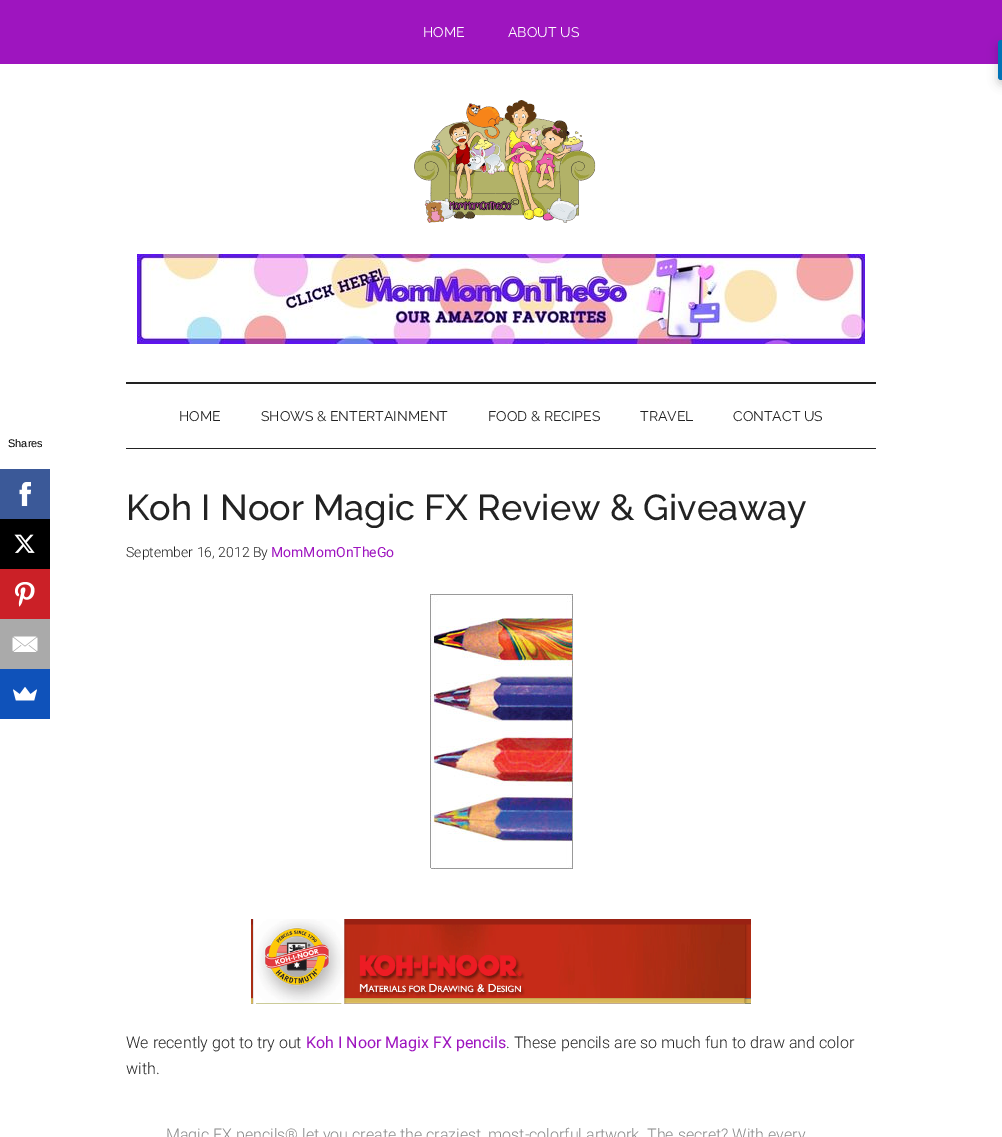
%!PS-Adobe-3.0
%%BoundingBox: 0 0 1002 1137
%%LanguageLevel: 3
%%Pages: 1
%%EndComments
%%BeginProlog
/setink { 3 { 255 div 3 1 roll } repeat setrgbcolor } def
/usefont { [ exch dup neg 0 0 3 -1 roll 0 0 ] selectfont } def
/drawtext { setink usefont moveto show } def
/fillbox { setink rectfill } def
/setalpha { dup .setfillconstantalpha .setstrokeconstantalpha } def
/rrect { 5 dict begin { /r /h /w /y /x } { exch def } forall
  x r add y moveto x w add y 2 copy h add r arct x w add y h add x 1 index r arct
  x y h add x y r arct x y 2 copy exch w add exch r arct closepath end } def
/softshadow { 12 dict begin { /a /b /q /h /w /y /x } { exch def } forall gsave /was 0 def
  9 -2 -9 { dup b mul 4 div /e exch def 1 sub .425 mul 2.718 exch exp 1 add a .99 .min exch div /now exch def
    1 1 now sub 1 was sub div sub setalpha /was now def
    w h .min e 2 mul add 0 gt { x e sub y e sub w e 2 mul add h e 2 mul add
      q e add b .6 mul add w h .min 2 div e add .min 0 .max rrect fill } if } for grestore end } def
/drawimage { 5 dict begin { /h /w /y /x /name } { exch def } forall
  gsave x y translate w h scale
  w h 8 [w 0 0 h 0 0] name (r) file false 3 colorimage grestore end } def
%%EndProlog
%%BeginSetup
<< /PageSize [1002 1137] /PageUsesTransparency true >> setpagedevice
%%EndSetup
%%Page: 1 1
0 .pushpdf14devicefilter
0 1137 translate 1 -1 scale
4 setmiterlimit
0 0 1002 1137 255 255 255 fillbox
0 0 1002 64 158 21 191 fillbox
(HOME) 423 37 /Raleway-Regular 14 255 255 255 drawtext
(ABOUT US) 508 37 /Raleway-Regular 14 255 255 255 drawtext
126 382 750 2 34 34 34 fillbox
(assets/img1.rgb) 414 100 182 123 drawimage
(assets/img2.rgb) 137 254 728 90 drawimage
126 448 750 1 34 34 34 fillbox
(HOME) 179 421 /Raleway-Regular 14 34 34 34 drawtext
(SHOWS & ENTERTAINMENT) 261 421 /Raleway-Regular 14 34 34 34 drawtext
(FOOD & RECIPES) 488 421 /Raleway-Regular 14 34 34 34 drawtext
(TRAVEL) 640 421 /Raleway-Regular 14 34 34 34 drawtext
(CONTACT US) 733 421 /Raleway-Regular 14 34 34 34 drawtext
(Koh I Noor Magic FX Review & Giveaway) 126 520 /Raleway-Medium 36 34 34 34 drawtext
(September 16, 2012 By) 126 557 /Roboto-Light 14 34 34 34 drawtext
(MomMomOnTheGo) 271 557 /Roboto-Regular 14 158 21 191 drawtext
(assets/img3.rgb) 430 594 143 275 drawimage
(assets/img4.rgb) 251 919 500 85 drawimage
(We recently got to try out) 126 1048 /Roboto-Light 16 34 34 34 drawtext
(Koh I Noor Magix FX pencils) 306 1048 /Roboto-Regular 16 158 21 191 drawtext
(. These pencils are so much fun to draw and color) 506 1048 /Roboto-Light 16 34 34 34 drawtext
(with.) 126 1074 /Roboto-Light 16 34 34 34 drawtext
(Magic FX pencils® let you create the craziest, most-colorful artwork. The secret? With every) 166 1140 /Roboto-Light 16 136 136 136 drawtext
0 0 0 setink
998 44 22 40 3 5 0.2 softshadow
0 115 183 setink
1001 40 moveto 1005 40 lineto 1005 80 lineto 1001 80 lineto 999.5 80 998 78.5 998 77 curveto 998 43 lineto 998 41.5 999.5 40 1001 40 curveto closepath fill
(Shares) 8 447 /LiberationSans-Regular 11 0 0 0 drawtext
0 469 50 50 59 89 152 fillbox
(assets/img5.rgb) 19 482 12 24 drawimage
0 519 50 50 0 0 0 fillbox
(assets/img6.rgb) 14 534 21 19 drawimage
0 569 50 50 203 32 39 fillbox
(assets/img7.rgb) 15 582 20 25 drawimage
0 619 50 50 170 170 170 fillbox
(assets/img8.rgb) 12 636 26 16 drawimage
0 669 50 50 15 82 186 fillbox
(assets/img9.rgb) 13 687 24 14 drawimage
.poppdf14devicefilter showpage
%%EOF
